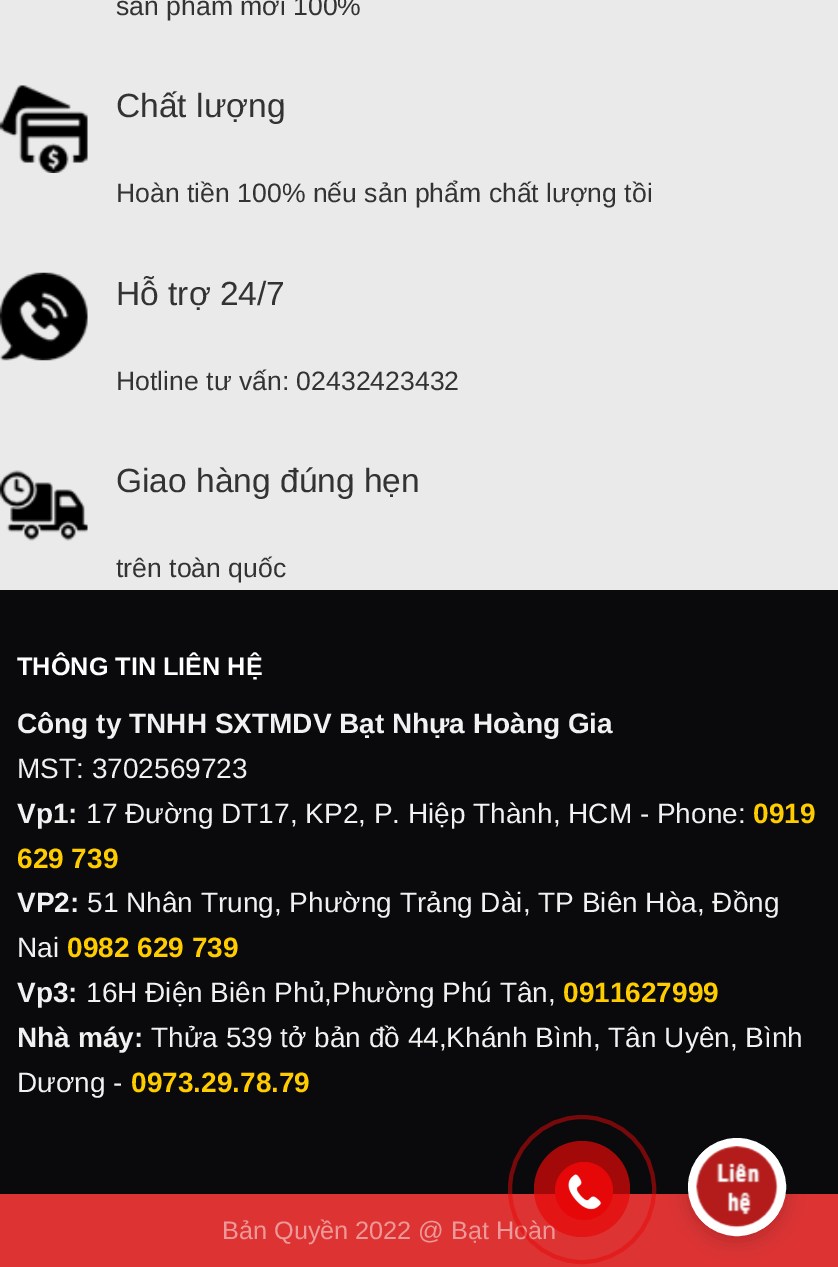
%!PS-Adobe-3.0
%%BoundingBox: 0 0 838 1267
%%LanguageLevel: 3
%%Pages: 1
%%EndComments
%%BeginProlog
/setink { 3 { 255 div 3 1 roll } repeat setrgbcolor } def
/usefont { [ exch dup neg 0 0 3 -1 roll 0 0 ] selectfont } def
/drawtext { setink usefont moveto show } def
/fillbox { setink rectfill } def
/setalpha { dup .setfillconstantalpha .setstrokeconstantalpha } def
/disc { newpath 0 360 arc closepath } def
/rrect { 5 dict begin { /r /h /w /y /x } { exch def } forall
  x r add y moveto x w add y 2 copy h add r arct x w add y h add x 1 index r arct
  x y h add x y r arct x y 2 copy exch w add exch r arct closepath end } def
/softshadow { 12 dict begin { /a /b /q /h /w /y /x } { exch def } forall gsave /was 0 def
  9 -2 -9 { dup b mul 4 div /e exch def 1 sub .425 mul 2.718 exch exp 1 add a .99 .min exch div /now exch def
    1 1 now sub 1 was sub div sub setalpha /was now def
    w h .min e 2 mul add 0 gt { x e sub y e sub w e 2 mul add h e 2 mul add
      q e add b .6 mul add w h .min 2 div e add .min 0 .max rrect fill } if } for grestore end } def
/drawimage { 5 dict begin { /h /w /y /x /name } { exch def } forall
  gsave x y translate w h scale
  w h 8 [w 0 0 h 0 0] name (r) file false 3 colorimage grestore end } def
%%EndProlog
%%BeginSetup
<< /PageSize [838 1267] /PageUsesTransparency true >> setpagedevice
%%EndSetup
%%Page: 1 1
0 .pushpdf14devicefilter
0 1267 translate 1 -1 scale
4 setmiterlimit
0 0 838 1267 234 234 234 fillbox
(sản phẩm mới 100%) 116 15 /LiberationSans-Regular 26.6 51 51 51 drawtext
(assets/img1.rgb) 0 85 88 88 drawimage
(Chất lượng) 116 117 /LiberationSans-Regular 33.5 51 51 51 drawtext
(Hoàn tiền 100% nếu sản phẩm chất lượng tồi) 116 202 /LiberationSans-Regular 26.6 51 51 51 drawtext
(assets/img2.rgb) 0 272 88 89 drawimage
(Hỗ trợ 24/7) 116 305 /LiberationSans-Regular 33.5 51 51 51 drawtext
(Hotline tư vấn: 02432423432) 116 390 /LiberationSans-Regular 26.6 51 51 51 drawtext
(assets/img3.rgb) 0 470 88 71 drawimage
(Giao hàng đúng hẹn) 116 492 /LiberationSans-Regular 33.5 51 51 51 drawtext
(trên toàn quốc) 116 577 /LiberationSans-Regular 26.6 51 51 51 drawtext
0 590 838 604 10 10 12 fillbox
(THÔNG TIN LIÊN HỆ) 17 675 /LiberationSans-Bold 25.25 255 255 255 drawtext
(Công ty TNHH SXTMDV Bạt Nhựa Hoàng Gia) 17 733 /LiberationSans-Bold 28 241 241 241 drawtext
(MST: 3702569723) 17 778 /LiberationSans-Regular 28 241 241 241 drawtext
(Vp1:) 17 823 /LiberationSans-Bold 28 241 241 241 drawtext
(17 Đường DT17, KP2, P. Hiệp Thành, HCM - Phone:) 86 823 /LiberationSans-Regular 28 241 241 241 drawtext
(0919) 753 823 /LiberationSans-Bold 28 255 204 0 drawtext
(629 739) 17 868 /LiberationSans-Bold 28 255 204 0 drawtext
(VP2:) 17 912 /LiberationSans-Bold 28 241 241 241 drawtext
(51 Nhân Trung, Phường Trảng Dài, TP Biên Hòa, Đồng) 87 912 /LiberationSans-Regular 28 241 241 241 drawtext
(Nai) 17 957 /LiberationSans-Regular 28 241 241 241 drawtext
(0982 629 739) 67 957 /LiberationSans-Bold 28 255 204 0 drawtext
(Vp3:) 17 1002 /LiberationSans-Bold 28 241 241 241 drawtext
(16H Điện Biên Phủ,Phường Phú Tân,) 86 1002 /LiberationSans-Regular 28 241 241 241 drawtext
(0911627999) 563 1002 /LiberationSans-Bold 28 255 204 0 drawtext
(Nhà máy:) 17 1047 /LiberationSans-Bold 28 241 241 241 drawtext
(Thửa 539 tở bản đồ 44,Khánh Bình, Tân Uyên, Bình) 151 1047 /LiberationSans-Regular 28 241 241 241 drawtext
(Dương -) 17 1092 /LiberationSans-Regular 28 241 241 241 drawtext
(0973.29.78.79) 131 1092 /LiberationSans-Bold 28 255 204 0 drawtext
0 1194 838 73 221 51 51 fillbox
(Bản Quyền 2022 @ Bạt Hoàn) 222 1239 /LiberationSans-Regular 25.25 238 153 153 drawtext
0.5 setalpha
230 8 8 setink
4 setlinewidth
510 1117 144 145 72 rrect stroke
0.7 setalpha
582 1189 48 disc fill
1 setalpha
584 1191 29 disc fill
(assets/img4.rgb) 568 1174 34 36 drawimage
0 0 0 setink
688 1143 98 98 49 9 0.08 softshadow
688 1143 98 98 49 9 0.08 softshadow
255 255 255 setink
737 1187 44.5 disc gsave fill grestore
9 setlinewidth
stroke
(assets/img5.rgb) 696 1146 82 82 drawimage
.poppdf14devicefilter showpage
%%EOF
